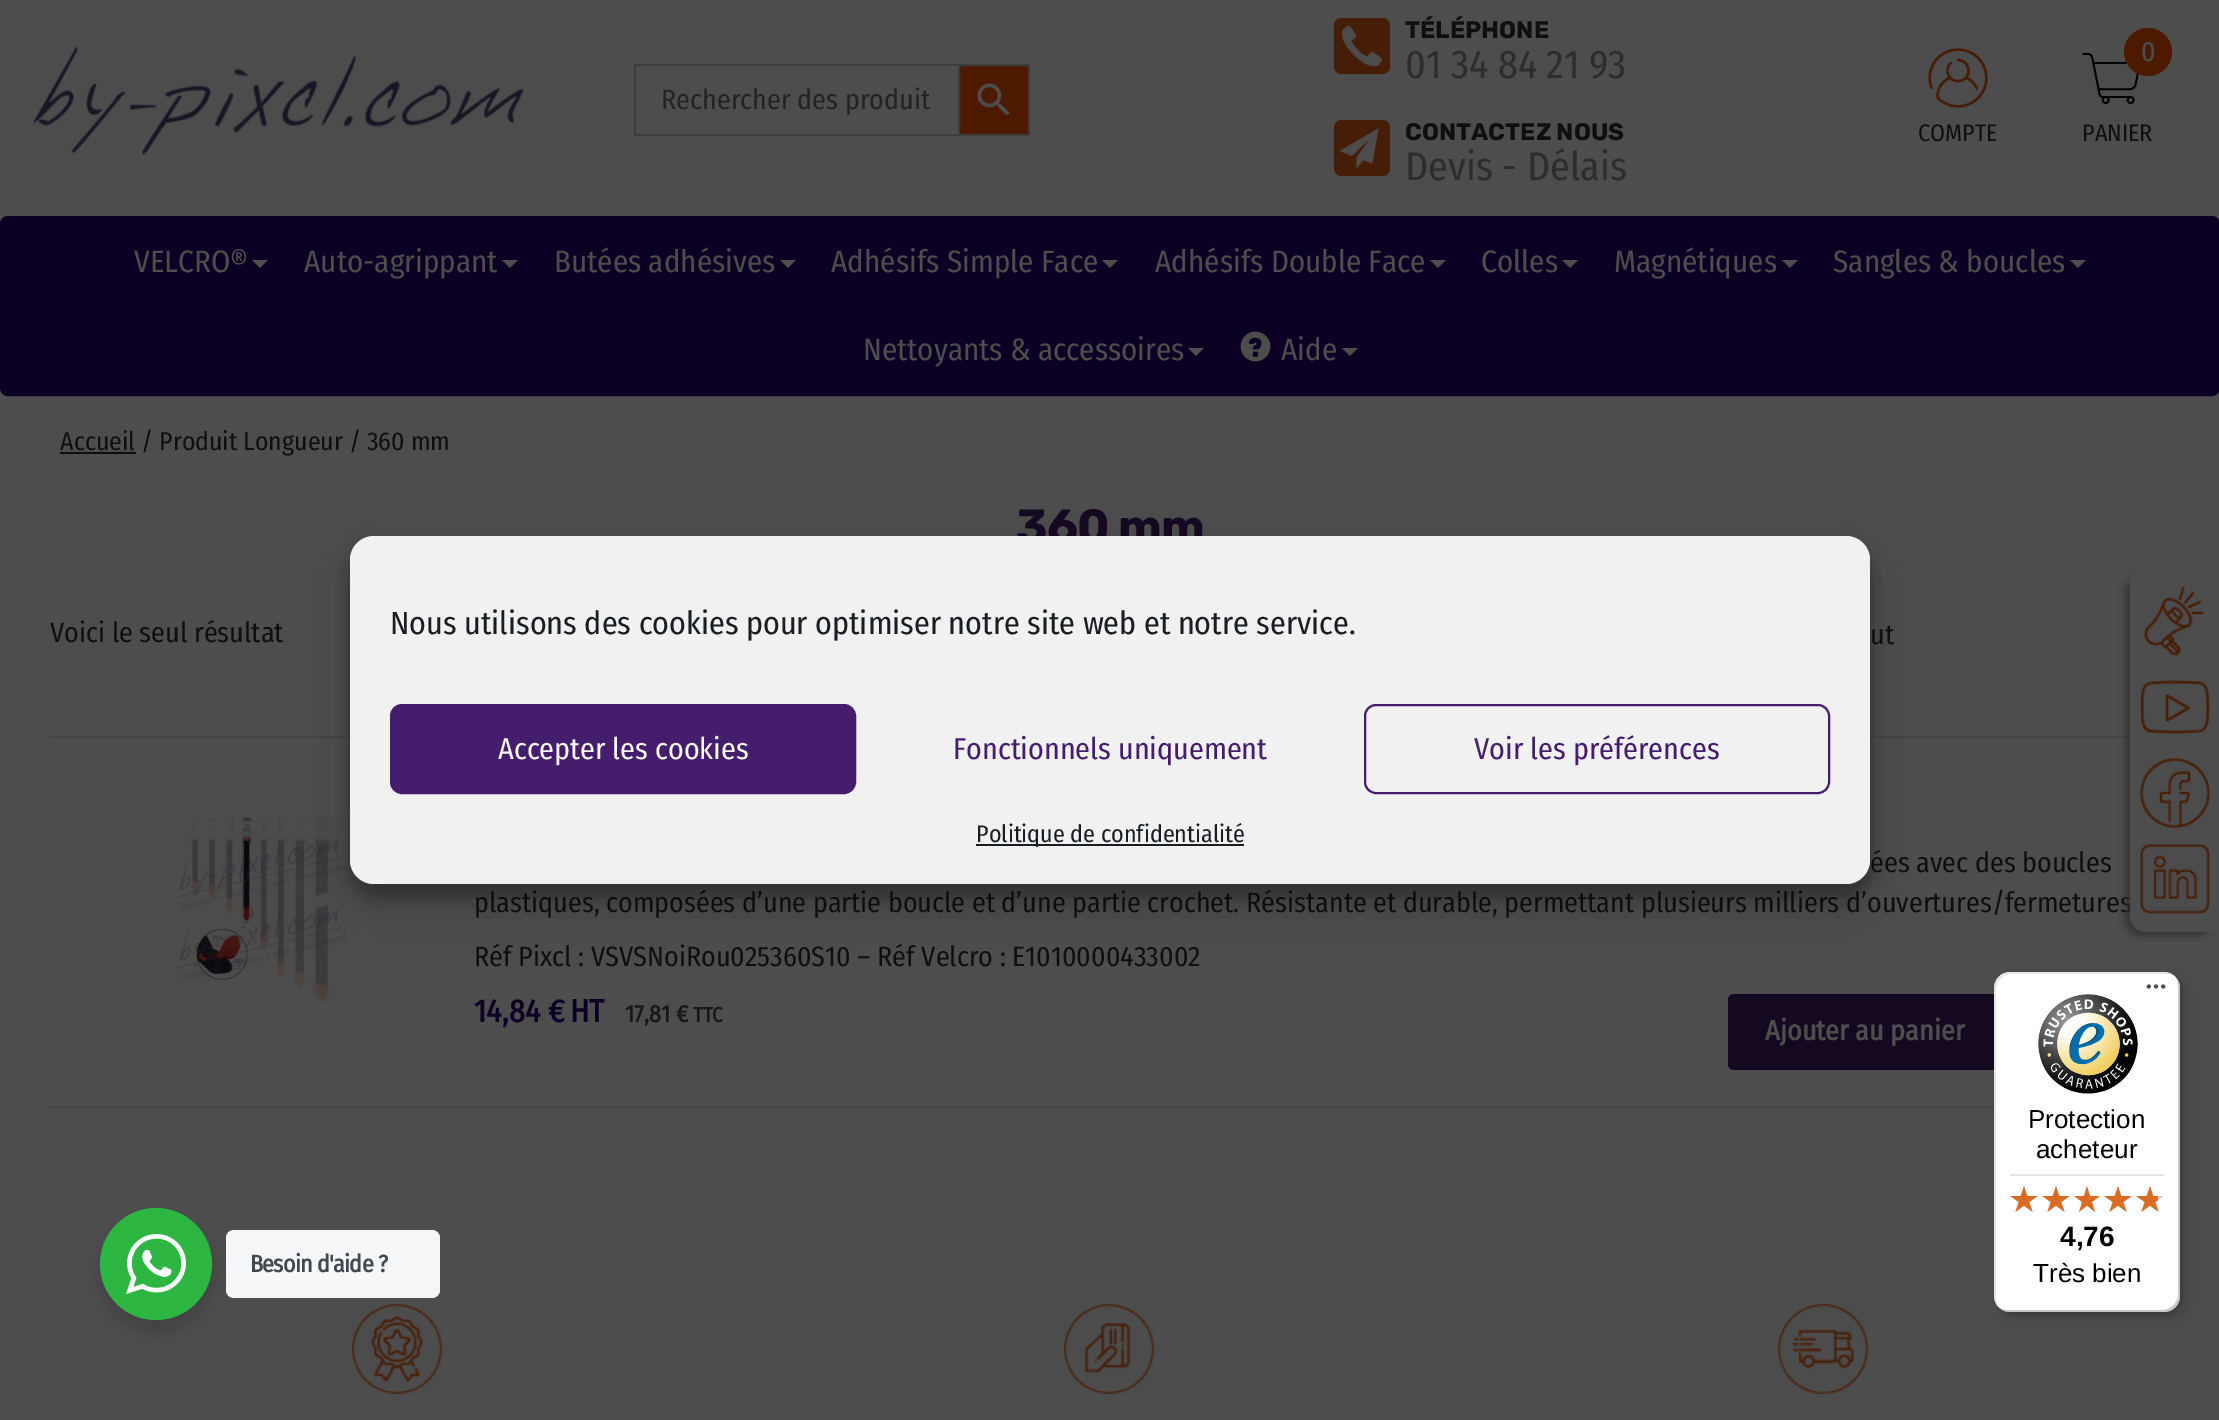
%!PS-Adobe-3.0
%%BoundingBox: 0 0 2219 1420
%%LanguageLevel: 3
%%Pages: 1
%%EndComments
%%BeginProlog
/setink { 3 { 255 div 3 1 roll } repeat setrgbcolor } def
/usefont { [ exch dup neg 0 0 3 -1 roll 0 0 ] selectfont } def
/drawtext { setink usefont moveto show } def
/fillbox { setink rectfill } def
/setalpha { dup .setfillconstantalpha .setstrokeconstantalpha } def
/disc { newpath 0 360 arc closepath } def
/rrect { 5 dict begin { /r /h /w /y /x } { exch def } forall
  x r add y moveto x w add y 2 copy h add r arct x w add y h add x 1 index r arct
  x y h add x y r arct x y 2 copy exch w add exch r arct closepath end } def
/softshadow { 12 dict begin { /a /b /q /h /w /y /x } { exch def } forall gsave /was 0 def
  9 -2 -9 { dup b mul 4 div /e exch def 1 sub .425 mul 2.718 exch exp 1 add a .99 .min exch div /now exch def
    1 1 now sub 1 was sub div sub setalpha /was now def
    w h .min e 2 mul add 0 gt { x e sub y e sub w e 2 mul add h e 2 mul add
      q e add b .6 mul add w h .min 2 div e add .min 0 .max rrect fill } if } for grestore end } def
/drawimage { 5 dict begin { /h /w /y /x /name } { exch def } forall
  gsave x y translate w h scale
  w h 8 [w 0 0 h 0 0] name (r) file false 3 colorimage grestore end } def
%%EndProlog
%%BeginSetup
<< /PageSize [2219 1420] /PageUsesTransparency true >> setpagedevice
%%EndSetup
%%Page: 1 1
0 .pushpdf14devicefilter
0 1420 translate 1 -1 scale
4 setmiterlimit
0 0 2219 1420 77 77 77 fillbox
(assets/img1.rgb) 32 46 492 109 drawimage
634 64 324 2 61 61 61 fillbox
634 134 324 2 61 61 61 fillbox
634 64 2 72 61 61 61 fillbox
(Rechercher des produit) 661 109 /FiraSansCondensed-Regular 28 35 35 35 drawtext
77 26 0 setink
959 65 moveto 1029 65 lineto 1029 135 lineto 959 135 lineto closepath gsave fill grestore
61 61 61 setink
2 setlinewidth
stroke
(assets/img2.rgb) 977 83 33 33 drawimage
(assets/img3.rgb) 1334 18 56 56 drawimage
(TÉLÉPHONE) 1405 38 /Rubik-Bold 24 15 15 15 drawtext
(01 34 84 21 93) 1405 78 /FiraSansCondensed-Regular 40 44 45 45 drawtext
(assets/img4.rgb) 1334 120 56 56 drawimage
(CONTACTEZ NOUS) 1405 140 /Rubik-Bold 24 15 15 15 drawtext
(Devis - Délais) 1405 180 /FiraSansCondensed-Regular 40 44 45 45 drawtext
(assets/img5.rgb) 1928 48 60 60 drawimage
(COMPTE) 1918 141 /FiraSansCondensed-Regular 24 15 15 15 drawtext
(assets/img6.rgb) 2082 53 57 51 drawimage
77 26 0 setink
2148 52 24 disc fill
(0) 2141 61 /FiraSansCondensed-Regular 28 77 77 77 drawtext
(PANIER) 2082 141 /FiraSansCondensed-Regular 24 15 15 15 drawtext
11 0 36 setink
1 217 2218 178 7 rrect gsave fill grestore
stroke
(VELCRO®) 134 272 /FiraSansCondensed-Regular 31 77 77 77 drawtext
252 260 moveto 268 260 lineto 260 268 lineto closepath fill
(Auto-agrippant) 304 272 /FiraSansCondensed-Regular 31 77 77 77 drawtext
502 260 moveto 518 260 lineto 510 268 lineto closepath fill
(Butées adhésives) 554 272 /FiraSansCondensed-Regular 31 77 77 77 drawtext
780 260 moveto 796 260 lineto 788 268 lineto closepath fill
(Adhésifs Simple Face) 831 272 /FiraSansCondensed-Regular 31 77 77 77 drawtext
1102 260 moveto 1118 260 lineto 1110 268 lineto closepath fill
(Adhésifs Double Face) 1155 272 /FiraSansCondensed-Regular 31 77 77 77 drawtext
1430 260 moveto 1446 260 lineto 1438 268 lineto closepath fill
(Colles) 1481 272 /FiraSansCondensed-Regular 31 77 77 77 drawtext
1562 260 moveto 1578 260 lineto 1570 268 lineto closepath fill
(Magnétiques) 1614 272 /FiraSansCondensed-Regular 31 77 77 77 drawtext
1782 260 moveto 1798 260 lineto 1790 268 lineto closepath fill
(Sangles & boucles) 1833 272 /FiraSansCondensed-Regular 31 77 77 77 drawtext
2070 260 moveto 2086 260 lineto 2078 268 lineto closepath fill
(Nettoyants & accessoires) 863 360 /FiraSansCondensed-Regular 31 77 77 77 drawtext
1188 348 moveto 1204 348 lineto 1196 356 lineto closepath fill
(assets/img7.rgb) 1240 331 31 31 drawimage
(Aide) 1281 360 /FiraSansCondensed-Regular 31 77 77 77 drawtext
1342 348 moveto 1358 348 lineto 1350 356 lineto closepath fill
60 452 76 2 14 13 13 fillbox
(Accueil / Produit Longueur / 360 mm) 60 450 /FiraSansCondensed-Regular 25.75 15 15 15 drawtext
/Rubik-Bold 48 usefont
21 9 33 setink
1016 543 moveto -1 0 (360 mm) ashow
(Voici le seul résultat) 50 642 /FiraSansCondensed-Regular 28 15 15 15 drawtext
(ut) 1870 644 /FiraSansCondensed-Regular 28 15 15 15 drawtext
50 1106 1944 2 70 70 70 fillbox
50 736 2080 2 70 70 70 fillbox
(assets/img8.rgb) 173 815 174 189 drawimage
(ées avec des boucles) 1870 872 /FiraSansCondensed-Regular 28 15 15 15 drawtext
(plastiques, composées d’une partie boucle et d’une partie crochet. Résistante et durable, permettant plusieurs milliers d’ouvertures/fermetures) 474 912 /FiraSansCondensed-Regular 28 15 15 15 drawtext
(Réf Pixcl : VSVSNoiRou025360S10 – Réf Velcro : E1010000433002) 474 966 /FiraSansCondensed-Regular 28 15 15 15 drawtext
(14,84 €) 474 1022 /FiraSansCondensed-Bold 32 11 0 36 drawtext
(HT) 570 1022 /FiraSansCondensed-Bold 32 11 0 36 drawtext
(17,81 €) 625 1022 /FiraSansCondensed-Bold 24 23 24 26 drawtext
(TTC) 693 1022 /FiraSansCondensed-Bold 21 23 24 26 drawtext
21 9 33 setink
1728 994 272 76 6 rrect fill
(Ajouter au panier) 1765 1040 /FiraSansCondensed-Bold 28 77 77 77 drawtext
(assets/img9.rgb) 352 1304 90 90 drawimage
(assets/img10.rgb) 1064 1304 90 90 drawimage
(assets/img11.rgb) 1778 1304 90 90 drawimage
48 48 48 setink
2126 576 86 360 14 4 0.88 softshadow
77 77 77 setink
2146 568 moveto 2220 568 lineto 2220 932 lineto 2146 932 lineto 2137 932 2130 925 2130 916 curveto 2130 584 lineto 2130 575 2137 568 2146 568 curveto closepath fill
(assets/img12.rgb) 2144 586 61 70 drawimage
(assets/img13.rgb) 2140 680 70 54 drawimage
(assets/img14.rgb) 2140 758 70 70 drawimage
(assets/img15.rgb) 2140 844 70 70 drawimage
0 0 0 setink
350 548 1520 348 24 6 0.23 softshadow
350 556 1520 348 24 20 0.19 softshadow
241 241 241 setink
350 536 1520 348 24 rrect fill
(Nous utilisons des cookies pour optimiser notre site web et notre service.) 390 634 /FiraSansCondensed-Regular 32 25 30 35 drawtext
69 29 109 setink
391 705 464 88 11 rrect gsave fill grestore
stroke
(Accepter les cookies) 498 759 /FiraSansCondensed-Regular 30 255 255 255 drawtext
(Fonctionnels uniquement) 953 759 /FiraSansCondensed-Regular 30 69 29 109 drawtext
1365 705 464 88 11 rrect stroke
(Voir les préférences) 1474 759 /FiraSansCondensed-Regular 30 69 29 109 drawtext
976 844 268 2 25 30 35 fillbox
(Politique de confidentialité) 976 842 /FiraSansCondensed-Regular 24 25 30 35 drawtext
0 0 0 setink
96 1216 120 120 60 8 0.14 softshadow
45 183 66 setink
156 1264 56 disc fill
(assets/img16.rgb) 126 1234 60 60 drawimage
245 247 249 setink
226 1230 214 68 8 rrect fill
/FiraSansCondensed-Bold 24 usefont
67 71 78 setink
250 1272 moveto -0.75 0 (Besoin d'aide ?) ashow
0 0 0 setink
2000 978 186 340 16 8 0.15 softshadow
1996 974 186 340 16 2 0.15 softshadow
255 255 255 setink
1994 972 186 340 16 rrect fill
0.1 setalpha
0 0 0 setink
2012 974 moveto 2166 974 lineto 2170 974 2173 975 2176 977 curveto 2173 974 2169 972 2164 972 curveto 2010 972 lineto 2001 972 1994 979 1994 988 curveto 1994 1296 lineto 1994 1301 1996 1305 1999 1308 curveto 1997 1305 1996 1302 1996 1298 curveto 1996 990 lineto 1996 981 2003 974 2012 974 curveto closepath fill
0.2 setalpha
1998 1307 moveto 2001 1310 2005 1312 2010 1312 curveto 2164 1312 lineto 2173 1312 2180 1305 2180 1296 curveto 2180 988 lineto 2180 983 2178 979 2175 976 curveto 2177 979 2178 982 2178 986 curveto 2178 1294 lineto 2178 1303 2171 1310 2162 1310 curveto 2008 1310 lineto 2004 1310 2001 1309 1998 1307 curveto closepath fill
50 50 50 setink
1999 1307 moveto 2002 1310 2006 1312 2010 1312 curveto 2164 1312 lineto 2173 1312 2180 1305 2180 1296 curveto 2180 988 lineto 2180 984 2178 980 2175 977 curveto 2178 980 2179 983 2179 987 curveto 2179 1295 lineto 2179 1304 2172 1311 2163 1311 curveto 2009 1311 lineto 2005 1311 2002 1310 1999 1307 curveto closepath fill
0.3 setalpha
255 255 255 setink
1999 1307 moveto 2002 1310 2006 1312 2010 1312 curveto 2164 1312 lineto 2173 1312 2180 1305 2180 1296 curveto 2180 988 lineto 2180 984 2178 980 2175 977 curveto 2178 980 2179 983 2179 987 curveto 2179 1295 lineto 2179 1304 2172 1311 2163 1311 curveto 2009 1311 lineto 2005 1311 2002 1310 1999 1307 curveto closepath fill
1 setalpha
(assets/img17.rgb) 2146 984 20 5 drawimage
(assets/img18.rgb) 2038 994 100 100 drawimage
(Protection) 2028 1128 /LiberationSans-Regular 26 0 0 0 drawtext
(acheteur) 2036 1158 /LiberationSans-Regular 26 0 0 0 drawtext
2010 1174 154 2 229 229 229 fillbox
(assets/img19.rgb) 2010 1186 28 26 drawimage
(assets/img19.rgb) 2042 1186 28 26 drawimage
(assets/img20.rgb) 2074 1186 26 26 drawimage
(assets/img19.rgb) 2104 1186 28 26 drawimage
(assets/img19.rgb) 2136 1186 28 26 drawimage
(assets/img21.rgb) 2010 1186 28 26 drawimage
(assets/img21.rgb) 2042 1186 28 26 drawimage
(assets/img22.rgb) 2074 1186 26 26 drawimage
(assets/img21.rgb) 2104 1186 28 26 drawimage
(assets/img23.rgb) 2136 1186 22 26 drawimage
(4,76) 2060 1246 /LiberationSans-Bold 28 0 0 0 drawtext
(Très bien) 2033 1282 /LiberationSans-Regular 26 0 0 0 drawtext
.poppdf14devicefilter showpage
%%EOF
